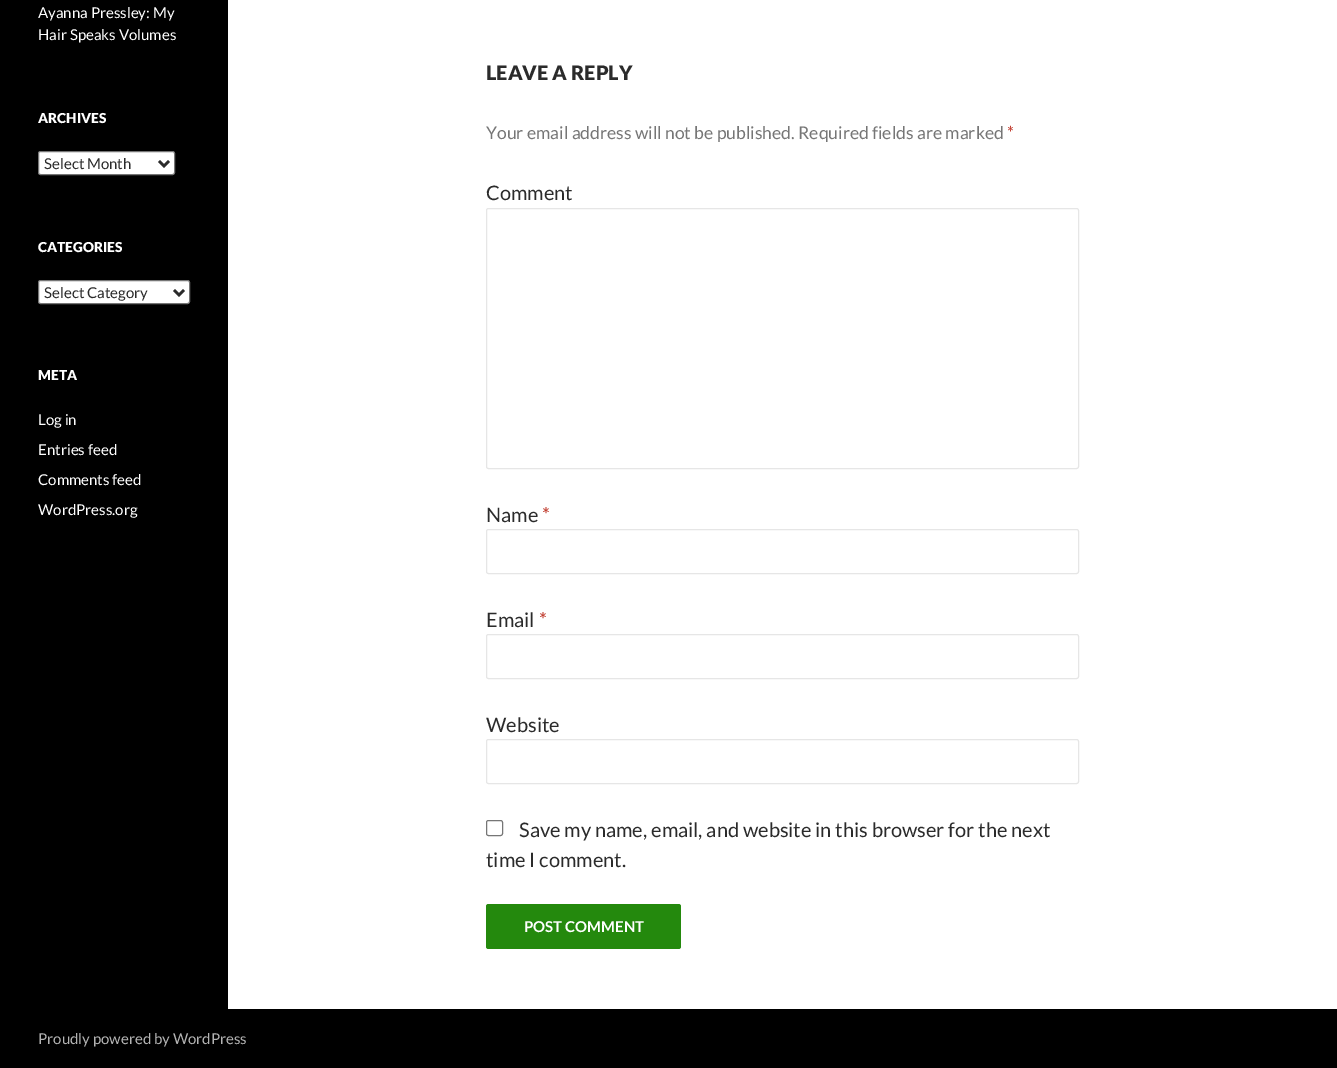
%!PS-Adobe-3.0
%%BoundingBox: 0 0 1337 1068
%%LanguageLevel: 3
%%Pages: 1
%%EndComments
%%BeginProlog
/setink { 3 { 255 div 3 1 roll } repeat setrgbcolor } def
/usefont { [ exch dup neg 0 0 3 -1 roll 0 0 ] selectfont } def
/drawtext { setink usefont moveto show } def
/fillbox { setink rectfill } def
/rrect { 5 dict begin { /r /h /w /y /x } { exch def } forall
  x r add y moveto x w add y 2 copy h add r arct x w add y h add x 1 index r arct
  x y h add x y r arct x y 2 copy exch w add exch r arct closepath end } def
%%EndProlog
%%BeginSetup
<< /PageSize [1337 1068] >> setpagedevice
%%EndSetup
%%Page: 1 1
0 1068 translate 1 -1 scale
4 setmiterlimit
0 0 1337 1068 255 255 255 fillbox
0 0 228 1009 0 0 0 fillbox
(Ayanna Pressley: My) 38 18 /Lato-Regular 15 255 255 255 drawtext
(Hair Speaks Volumes) 38 40 /Lato-Regular 15 255 255 255 drawtext
(ARCHIVES) 38 123 /Lato-Black 13.75 255 255 255 drawtext
38.5 151.5 136 23 2 rrect gsave fill grestore
118 118 118 setink
stroke
43 43 43 setink
2.5 setlinewidth
159 161 moveto 164 166 lineto 169 161 lineto stroke
(Select Month) 44 169 /Lato-Regular 15 43 43 43 drawtext
(CATEGORIES) 38 252 /Lato-Black 13.75 255 255 255 drawtext
38.5 280.5 151 23 2 rrect gsave fill grestore
118 118 118 setink
1 setlinewidth
stroke
43 43 43 setink
2.5 setlinewidth
174 290 moveto 179 295 lineto 184 290 lineto stroke
(Select Category) 44 298 /Lato-Regular 15 43 43 43 drawtext
(META) 38 380 /Lato-Black 13.75 255 255 255 drawtext
(Log in) 38 425 /Lato-Regular 15 255 255 255 drawtext
(Entries feed) 38 455 /Lato-Regular 15 255 255 255 drawtext
(Comments feed) 38 485 /Lato-Regular 15 255 255 255 drawtext
(WordPress.org) 38 515 /Lato-Regular 15 255 255 255 drawtext
(LEAVE A REPLY) 486 80 /Lato-Black 20 43 43 43 drawtext
(Your email address will not be published. Required fields are marked) 486 139 /Lato-Regular 17.5 118 118 118 drawtext
(*) 1007 139 /Lato-Regular 17.5 192 57 43 drawtext
(Comment) 486 200 /Lato-Regular 20 43 43 43 drawtext
230 230 230 setink
1 setlinewidth
486.5 208.5 592 260 2 rrect stroke
(Name) 486 522 /Lato-Regular 20 43 43 43 drawtext
(*) 542 522 /Lato-Regular 20 192 57 43 drawtext
230 230 230 setink
486.5 529.5 592 44 2 rrect stroke
(Email) 486 627 /Lato-Regular 20 43 43 43 drawtext
(*) 539 627 /Lato-Regular 20 192 57 43 drawtext
230 230 230 setink
486.5 634.5 592 44 2 rrect stroke
(Website) 486 732 /Lato-Regular 20 43 43 43 drawtext
230 230 230 setink
486.5 739.5 592 44 2 rrect stroke
118 118 118 setink
486.5 820.5 16 15 2 rrect stroke
(Save my name, email, and website in this browser for the next) 519 837 /Lato-Regular 20 43 43 43 drawtext
(time I comment.) 486 867 /Lato-Regular 20 43 43 43 drawtext
36 137 13 setink
486 904 195 45 2.5 rrect fill
(POST COMMENT) 524 932 /Lato-Bold 15 255 255 255 drawtext
0 1009 1337 59 0 0 0 fillbox
(Proudly powered by WordPress) 38 1044 /Lato-Regular 15 179 179 179 drawtext
showpage
%%EOF
